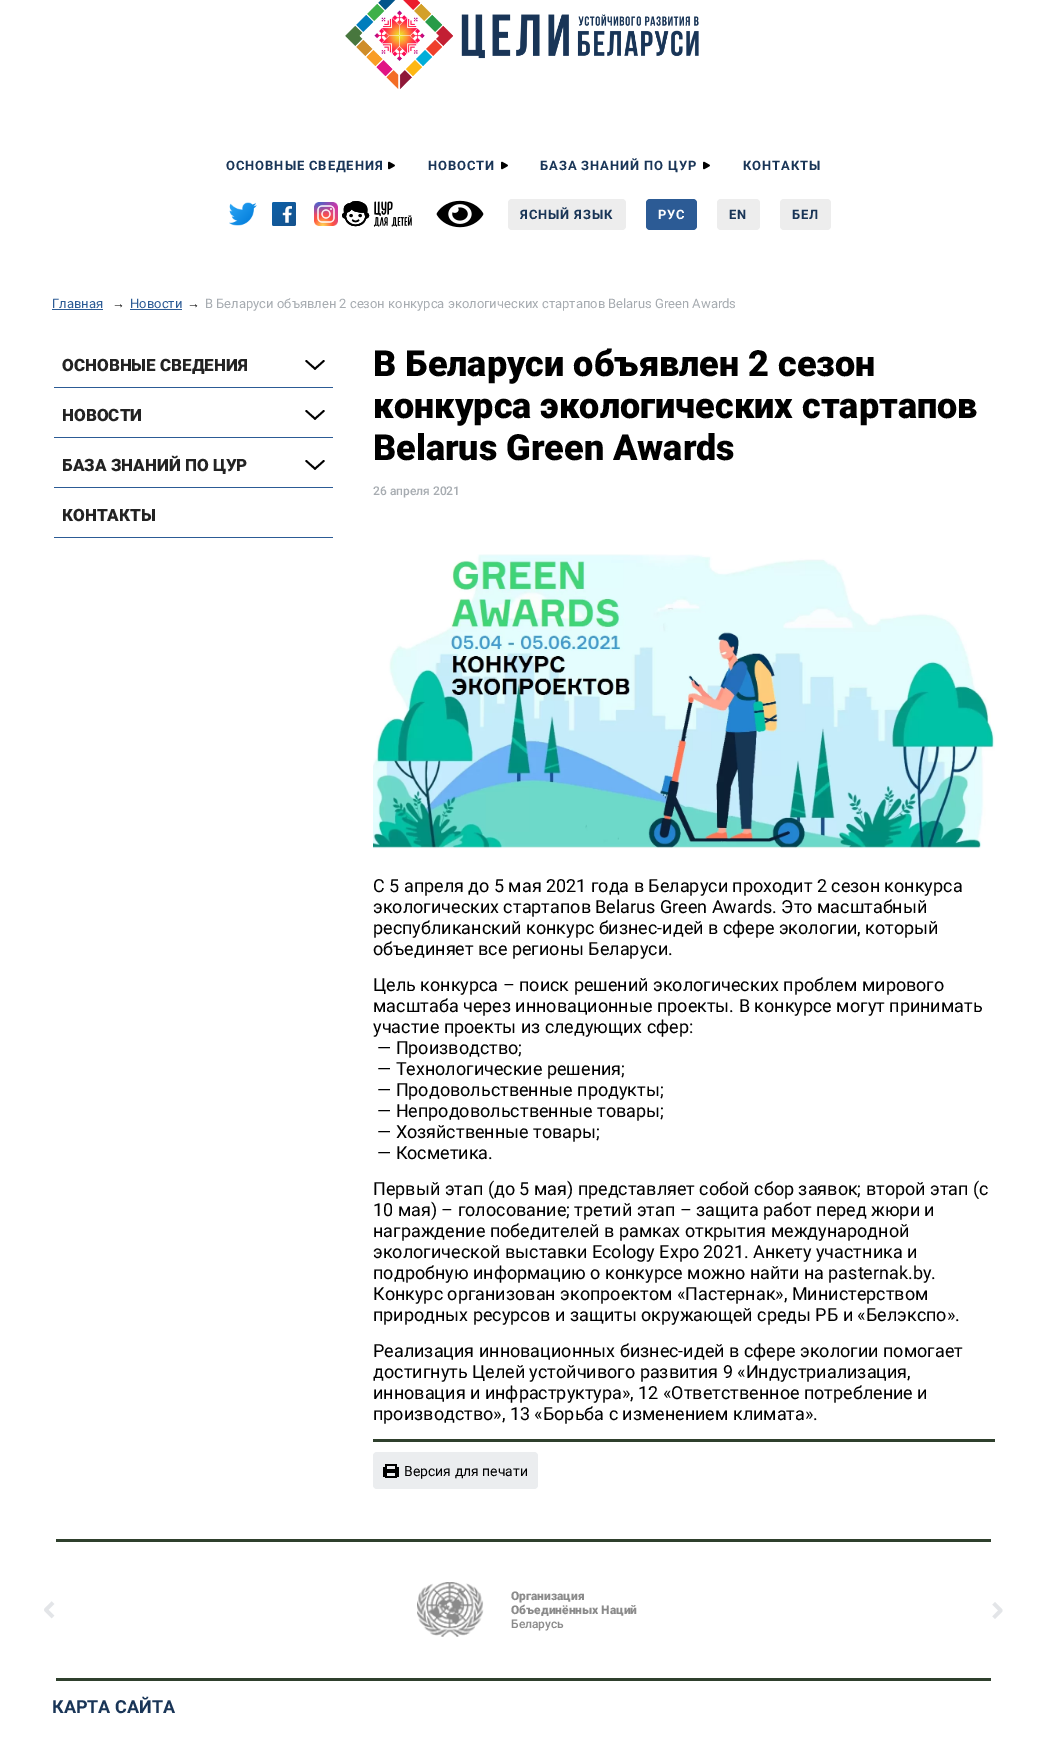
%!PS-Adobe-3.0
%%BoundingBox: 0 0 1047 1743
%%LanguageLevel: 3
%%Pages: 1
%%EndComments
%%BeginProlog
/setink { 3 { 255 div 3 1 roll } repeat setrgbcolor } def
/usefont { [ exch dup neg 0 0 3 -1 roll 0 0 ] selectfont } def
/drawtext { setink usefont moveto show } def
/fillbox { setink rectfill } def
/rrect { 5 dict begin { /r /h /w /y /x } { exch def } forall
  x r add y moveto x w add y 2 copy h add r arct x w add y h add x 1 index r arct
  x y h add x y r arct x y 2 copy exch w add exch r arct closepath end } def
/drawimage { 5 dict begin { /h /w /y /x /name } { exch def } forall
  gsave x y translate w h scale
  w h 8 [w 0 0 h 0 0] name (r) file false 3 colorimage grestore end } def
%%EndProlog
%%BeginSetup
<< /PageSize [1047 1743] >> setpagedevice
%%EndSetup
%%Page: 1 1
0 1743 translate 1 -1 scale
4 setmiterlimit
0 0 1047 1743 255 255 255 fillbox
(assets/img1.rgb) 345 0 354 89 drawimage
/Roboto-Bold 13 usefont
25 53 87 setink
226 170 moveto 0.9 0 (ОСНОВНЫЕ СВЕДЕНИЯ) ashow
(assets/img2.rgb) 388 161 7 9 drawimage
428 170 moveto 0.9 0 (НОВОСТИ) ashow
(assets/img2.rgb) 501 161 7 9 drawimage
540 170 moveto 0.9 0 (БАЗА ЗНАНИЙ ПО ЦУР) ashow
(assets/img2.rgb) 703 161 7 9 drawimage
743 170 moveto 0.9 0 (КОНТАКТЫ) ashow
(assets/img3.rgb) 229 202 28 24 drawimage
(assets/img4.rgb) 272 202 24 24 drawimage
(assets/img5.rgb) 314 202 24 24 drawimage
(assets/img6.rgb) 342 201 70 26 drawimage
(assets/img7.rgb) 436 200 48 28 drawimage
237 237 237 setink
508 199 118 31 4 rrect fill
25 53 87 setink
520 219 moveto 0.9 0 (ЯСНЫЙ ЯЗЫК) ashow
44 91 149 setink
646 199 51 31 4 rrect fill
255 255 255 setink
658 219 moveto 0.9 0 (РУС) ashow
237 237 237 setink
717 199 43 31 4 rrect fill
25 53 87 setink
729 219 moveto 0.9 0 (EN) ashow
237 237 237 setink
780 199 51 31 4 rrect fill
25 53 87 setink
792 219 moveto 0.9 0 (БЕЛ) ashow
(Главная) 52 308 /Roboto-Regular 13 44 91 149 drawtext
52 309 51 1 44 91 149 fillbox
(→) 112 308 /LiberationSerif-Regular 13 0 0 0 drawtext
(Новости) 130 308 /Roboto-Regular 13 44 91 149 drawtext
130 309 52 1 44 91 149 fillbox
(→) 187 308 /LiberationSerif-Regular 13 0 0 0 drawtext
(В Беларуси объявлен 2 сезон конкурса экологических стартапов Belarus Green Awards) 205 308 /Roboto-Regular 13 167 172 177 drawtext
54 387 279 1 44 91 149 fillbox
(ОСНОВНЫЕ СВЕДЕНИЯ) 62 371 /Roboto-Black 17 35 35 35 drawtext
0 0 0 setink
323.5 360 moveto 325 361 lineto 315 370 lineto 305 361 lineto 306.5 360 lineto 315 367.5 lineto closepath eofill
54 437 279 1 44 91 149 fillbox
(НОВОСТИ) 62 421 /Roboto-Black 17 35 35 35 drawtext
0 0 0 setink
323.5 410 moveto 325 411 lineto 315 420 lineto 305 411 lineto 306.5 410 lineto 315 417.5 lineto closepath eofill
54 487 279 1 44 91 149 fillbox
(БАЗА ЗНАНИЙ ПО ЦУР) 62 471 /Roboto-Black 17 35 35 35 drawtext
0 0 0 setink
323.5 460 moveto 325 461 lineto 315 470 lineto 305 461 lineto 306.5 460 lineto 315 467.5 lineto closepath eofill
54 537 279 1 44 91 149 fillbox
(КОНТАКТЫ) 62 521 /Roboto-Black 17 35 35 35 drawtext
(В Беларуси объявлен 2 сезон) 373 376 /Roboto-Black 36 0 0 0 drawtext
(конкурса экологических стартапов) 373 418 /Roboto-Black 36 0 0 0 drawtext
(Belarus Green Awards) 373 460 /Roboto-Black 36 0 0 0 drawtext
(26 апреля 2021) 373 495 /Roboto-Medium 12 167 172 177 drawtext
(assets/img8.rgb) 373 554 622 295 drawimage
(С 5 апреля до 5 мая 2021 года в Беларуси проходит 2 сезон конкурса) 373 892 /Roboto-Regular 18 0 0 0 drawtext
(экологических стартапов Belarus Green Awards. Это масштабный) 373 913 /Roboto-Regular 18 0 0 0 drawtext
(республиканский конкурс бизнес-идей в сфере экологии, который) 373 934 /Roboto-Regular 18 0 0 0 drawtext
(объединяет все регионы Беларуси.) 373 955 /Roboto-Regular 18 0 0 0 drawtext
(Цель конкурса – поиск решений экологических проблем мирового) 373 991 /Roboto-Regular 18 0 0 0 drawtext
(масштаба через инновационные проекты. В конкурсе могут принимать) 373 1012 /Roboto-Regular 18 0 0 0 drawtext
(участие проекты из следующих сфер:) 373 1033 /Roboto-Regular 18 0 0 0 drawtext
(— Производство;) 377 1054 /Roboto-Regular 18 0 0 0 drawtext
(— Технологические решения;) 377 1075 /Roboto-Regular 18 0 0 0 drawtext
(— Продовольственные продукты;) 377 1096 /Roboto-Regular 18 0 0 0 drawtext
(— Непродовольственные товары;) 377 1117 /Roboto-Regular 18 0 0 0 drawtext
(— Хозяйственные товары;) 377 1138 /Roboto-Regular 18 0 0 0 drawtext
(— Косметика.) 377 1159 /Roboto-Regular 18 0 0 0 drawtext
(Первый этап \(до 5 мая\) представляет собой сбор заявок; второй этап \(с) 373 1195 /Roboto-Regular 18 0 0 0 drawtext
(10 мая\) – голосование; третий этап – защита работ перед жюри и) 373 1216 /Roboto-Regular 18 0 0 0 drawtext
(награждение победителей в рамках открытия международной) 373 1237 /Roboto-Regular 18 0 0 0 drawtext
(экологической выставки Ecology Expo 2021. Анкету участника и) 373 1258 /Roboto-Regular 18 0 0 0 drawtext
(подробную информацию о конкурсе можно найти на pasternak.by.) 373 1279 /Roboto-Regular 18 0 0 0 drawtext
(Конкурс организован экопроектом «Пастернак», Министерством) 373 1300 /Roboto-Regular 18 0 0 0 drawtext
(природных ресурсов и защиты окружающей среды РБ и «Белэкспо».) 373 1321 /Roboto-Regular 18 0 0 0 drawtext
(Реализация инновационных бизнес-идей в сфере экологии помогает) 373 1357 /Roboto-Regular 18 0 0 0 drawtext
(достигнуть Целей устойчивого развития 9 «Индустриализация,) 373 1378 /Roboto-Regular 18 0 0 0 drawtext
(инновация и инфраструктура», 12 «Ответственное потребление и) 373 1399 /Roboto-Regular 18 0 0 0 drawtext
(производство», 13 «Борьба с изменением климата».) 373 1420 /Roboto-Regular 18 0 0 0 drawtext
373 1439 622 3 47 64 45 fillbox
235 237 239 setink
373 1452 165 37 4 rrect fill
(assets/img9.rgb) 383 1464 16 14 drawimage
(Версия для печати) 404 1476 /Roboto-Regular 14 0 0 0 drawtext
(assets/img10.rgb) 44 1601 11 18 drawimage
56 1539 935 3 47 64 45 fillbox
56 1678 935 3 47 64 45 fillbox
(assets/img11.rgb) 417 1582 67 55 drawimage
(Организация) 511 1600 /Roboto-Black 12 139 139 139 drawtext
(Объединённых Наций) 511 1614 /Roboto-Black 12 139 139 139 drawtext
(Беларусь) 511 1628 /Roboto-Medium 12 139 139 139 drawtext
(assets/img12.rgb) 992 1602 11 17 drawimage
(КАРТА САЙТА) 52 1713 /Roboto-Bold 18 25 53 87 drawtext
showpage
%%EOF
